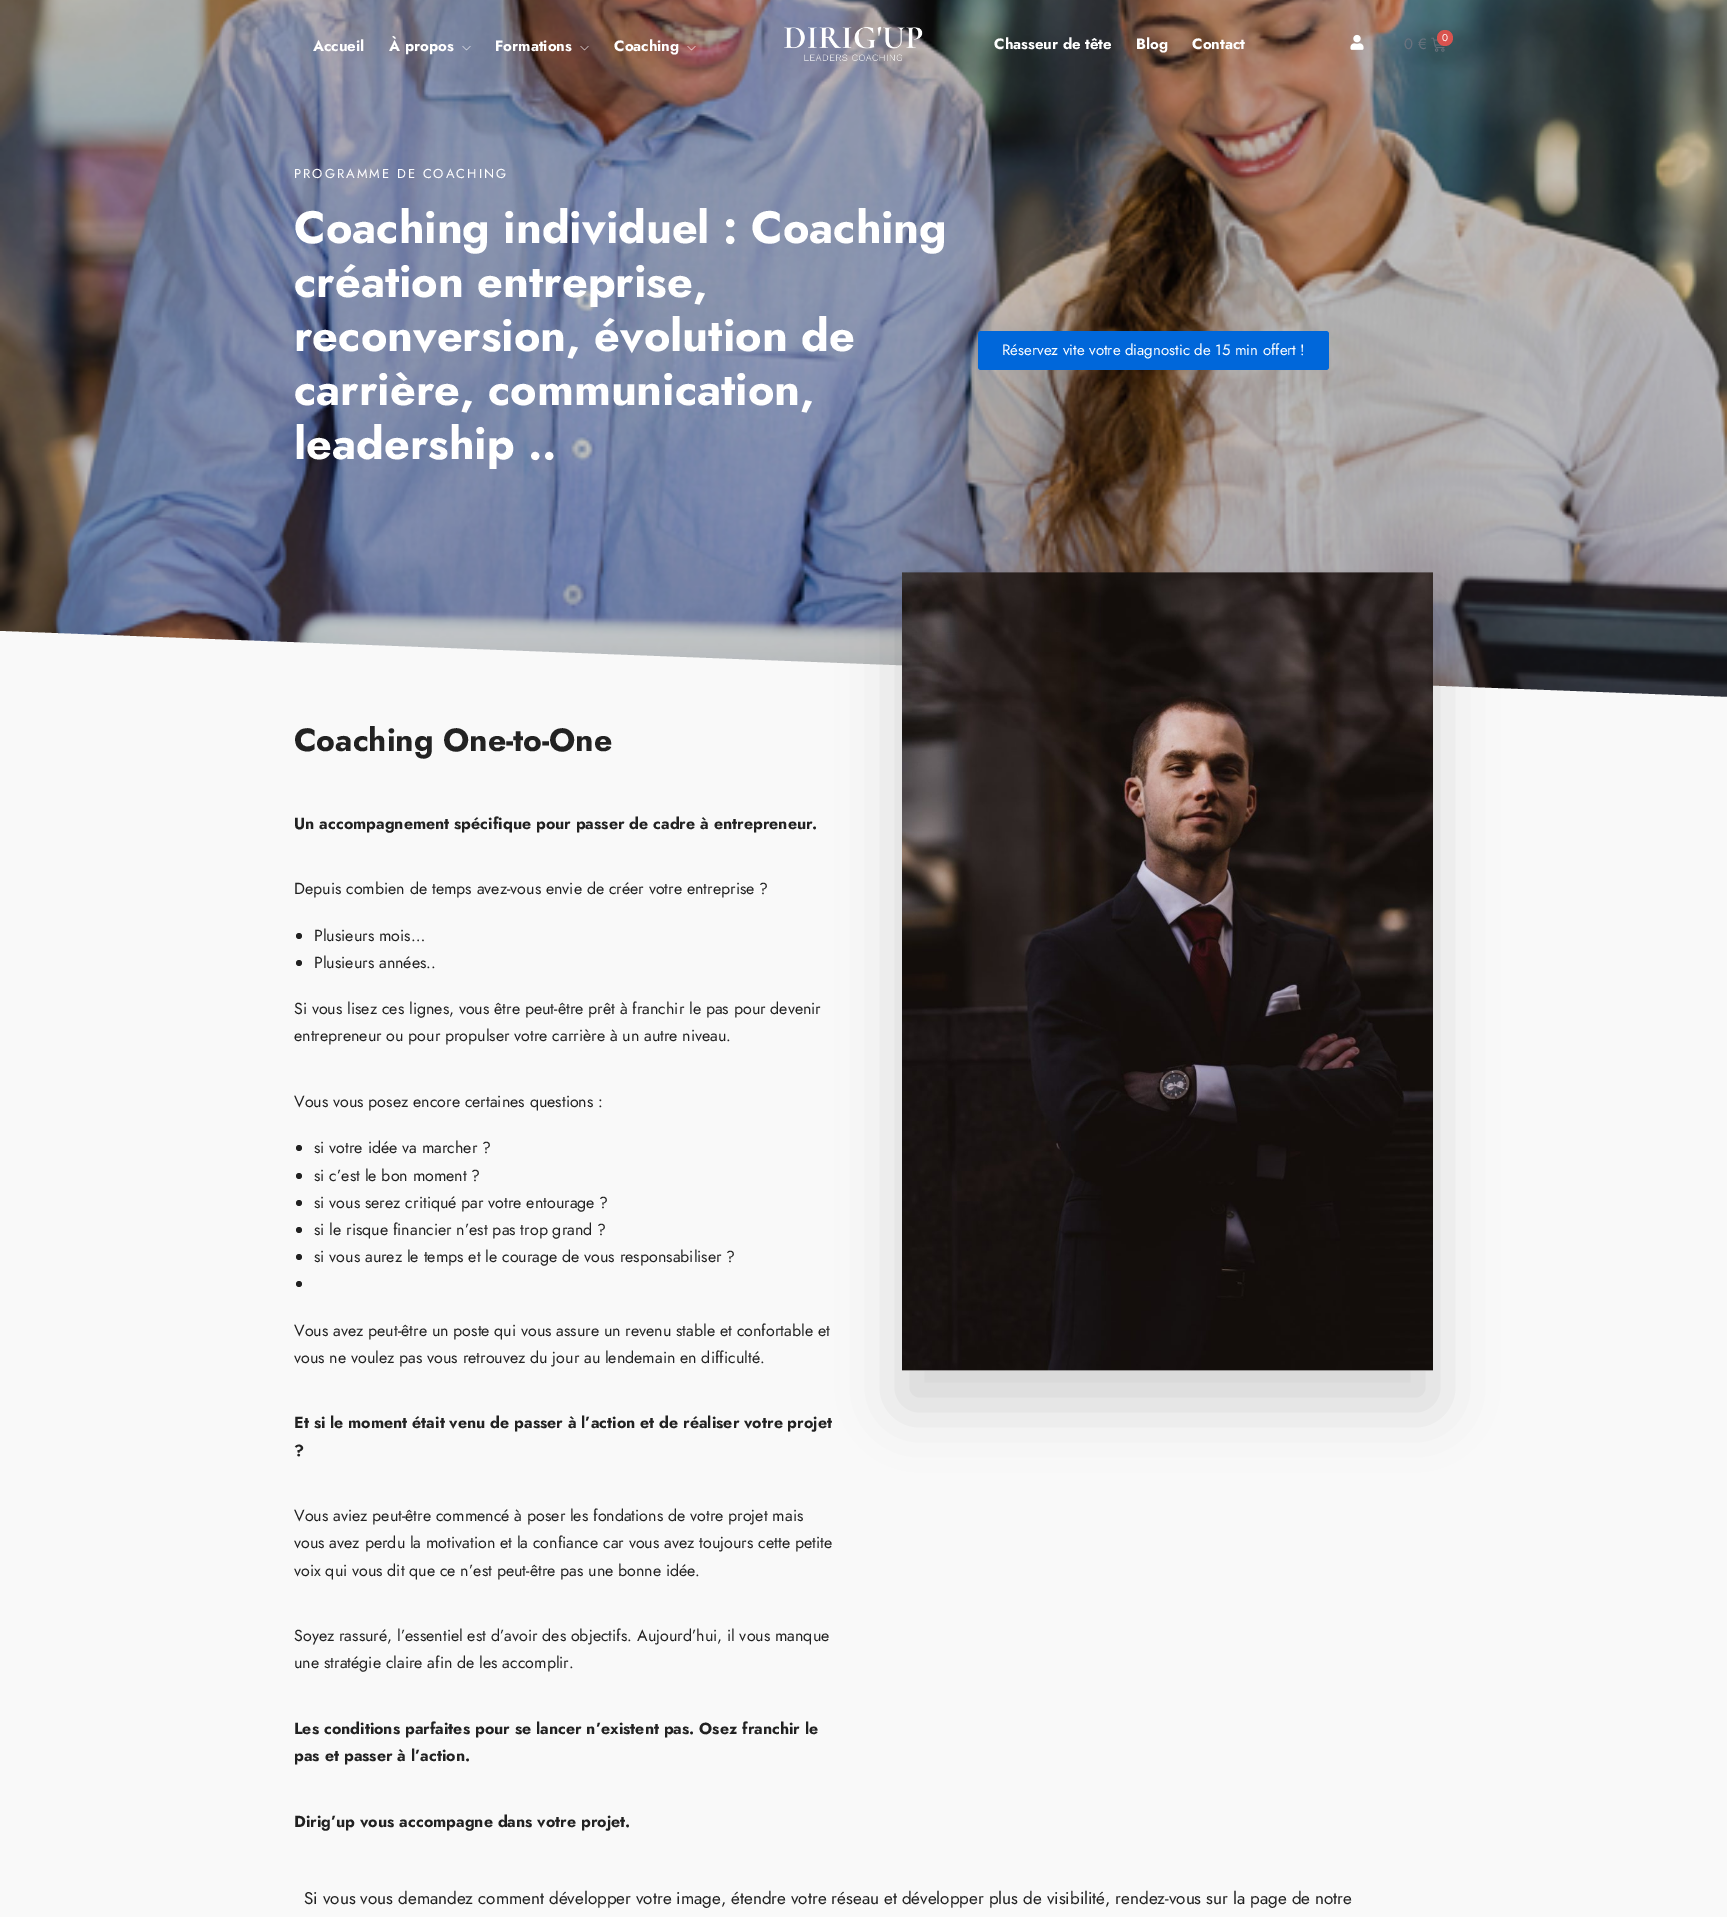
%!PS-Adobe-3.0
%%BoundingBox: 0 0 1727 1917
%%LanguageLevel: 3
%%Pages: 1
%%EndComments
%%BeginProlog
/setink { 3 { 255 div 3 1 roll } repeat setrgbcolor } def
/usefont { [ exch dup neg 0 0 3 -1 roll 0 0 ] selectfont } def
/drawtext { setink usefont moveto show } def
/fillbox { setink rectfill } def
/setalpha { dup .setfillconstantalpha .setstrokeconstantalpha } def
/disc { newpath 0 360 arc closepath } def
/rrect { 5 dict begin { /r /h /w /y /x } { exch def } forall
  x r add y moveto x w add y 2 copy h add r arct x w add y h add x 1 index r arct
  x y h add x y r arct x y 2 copy exch w add exch r arct closepath end } def
/softshadow { 12 dict begin { /a /b /q /h /w /y /x } { exch def } forall gsave /was 0 def
  9 -2 -9 { dup b mul 4 div /e exch def 1 sub .425 mul 2.718 exch exp 1 add a .99 .min exch div /now exch def
    1 1 now sub 1 was sub div sub setalpha /was now def
    w h .min e 2 mul add 0 gt { x e sub y e sub w e 2 mul add h e 2 mul add
      q e add b .6 mul add w h .min 2 div e add .min 0 .max rrect fill } if } for grestore end } def
/drawimage { 5 dict begin { /h /w /y /x /name } { exch def } forall
  gsave x y translate w h scale
  w h 8 [w 0 0 h 0 0] name (r) file false 3 colorimage grestore end } def
%%EndProlog
%%BeginSetup
<< /PageSize [1727 1917] /PageUsesTransparency true >> setpagedevice
%%EndSetup
%%Page: 1 1
0 .pushpdf14devicefilter
0 1917 translate 1 -1 scale
4 setmiterlimit
0 0 1727 1917 249 249 249 fillbox
(assets/img7.rgb) 0 0 1727 697 drawimage
(Accueil) 313 51 /Jost-Bold 15 255 255 255 drawtext
(À propos) 389 51 /Jost-Bold 15 255 255 255 drawtext
(assets/img1.rgb) 462 46 9 5 drawimage
(Formations) 495 51 /Jost-Bold 15 255 255 255 drawtext
(assets/img2.rgb) 580 46 9 5 drawimage
(Coaching) 614 51 /Jost-Bold 15 255 255 255 drawtext
(assets/img3.rgb) 687 46 9 5 drawimage
(assets/img4.rgb) 784 26 139 35 drawimage
(Chasseur de tête) 994 49 /Jost-Bold 15 255 255 255 drawtext
(Blog) 1136 49 /Jost-Bold 15 255 255 255 drawtext
(Contact) 1192 49 /Jost-Bold 15 255 255 255 drawtext
(assets/img5.rgb) 1350 34 14 16 drawimage
(0 €) 1404 49 /Jost-Regular 15 105 114 125 drawtext
(assets/img6.rgb) 1431 37 14 15 drawimage
217 83 79 setink
1445 38 8 disc fill
(0) 1442 41 /Jost-Regular 10 255 255 255 drawtext
/Jost-Regular 13 usefont
294 178 moveto 2 0 (PROGRAMME DE COACHING) ashow
(Coaching individuel : Coaching) 294 243 /Jost-Bold 45 255 255 255 drawtext
(création entreprise,) 294 297 /Jost-Bold 45 255 255 255 drawtext
(reconversion, évolution de) 294 351 /Jost-Bold 45 255 255 255 drawtext
(carrière, communication,) 294 405 /Jost-Bold 45 255 255 255 drawtext
(leadership ..) 294 459 /Jost-Bold 45 255 255 255 drawtext
0 103 218 setink
978 331 351 39 3 rrect fill
(Réservez vite votre diagnostic de 15 min offert !) 1002 355 /Jost-Regular 15 255 255 255 drawtext
249 249 249 setink
1727 697 moveto 1727 701 lineto -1 701 lineto -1 631 lineto closepath fill
(Coaching One-to-One) 294 751 /Jost-Bold 32 34 34 34 drawtext
(Un accompagnement spécifique pour passer de cadre à entrepreneur.) 294 829 /Jost-Bold 16 34 34 34 drawtext
(Depuis combien de temps avez-vous envie de créer votre entreprise ?) 294 894 /Jost-Regular 16 34 34 34 drawtext
299 936 3 disc fill
(Plusieurs mois…) 314 941 /Jost-Regular 16 34 34 34 drawtext
299 963 3 disc fill
(Plusieurs années..) 314 968 /Jost-Regular 16 34 34 34 drawtext
(Si vous lisez ces lignes, vous être peut-être prêt à franchir le pas pour devenir) 294 1014 /Jost-Regular 16 34 34 34 drawtext
(entrepreneur ou pour propulser votre carrière à un autre niveau.) 294 1041 /Jost-Regular 16 34 34 34 drawtext
(Vous vous posez encore certaines questions :) 294 1107 /Jost-Regular 16 34 34 34 drawtext
299 1148 3 disc fill
(si votre idée va marcher ?) 314 1153 /Jost-Regular 16 34 34 34 drawtext
299 1176 3 disc fill
(si c’est le bon moment ?) 314 1181 /Jost-Regular 16 34 34 34 drawtext
299 1203 3 disc fill
(si vous serez critiqué par votre entourage ?) 314 1208 /Jost-Regular 16 34 34 34 drawtext
299 1230 3 disc fill
(si le risque financier n’est pas trop grand ?) 314 1235 /Jost-Regular 16 34 34 34 drawtext
299 1257 3 disc fill
(si vous aurez le temps et le courage de vous responsabiliser ?) 314 1262 /Jost-Regular 16 34 34 34 drawtext
299 1284 3 disc fill
(Vous avez peut-être un poste qui vous assure un revenu stable et confortable et) 294 1336 /Jost-Regular 16 34 34 34 drawtext
(vous ne voulez pas vous retrouvez du jour au lendemain en difficulté.) 294 1363 /Jost-Regular 16 34 34 34 drawtext
(Et si le moment était venu de passer à l’action et de réaliser votre projet) 294 1428 /Jost-Bold 16 34 34 34 drawtext
(?) 294 1456 /Jost-Bold 16 34 34 34 drawtext
(Vous aviez peut-être commencé à poser les fondations de votre projet mais) 294 1521 /Jost-Regular 16 34 34 34 drawtext
(vous avez perdu la motivation et la confiance car vous avez toujours cette petite) 294 1548 /Jost-Regular 16 34 34 34 drawtext
(voix qui vous dit que ce n’est peut-être pas une bonne idée.) 294 1576 /Jost-Regular 16 34 34 34 drawtext
(Soyez rassuré, l’essentiel est d’avoir des objectifs. Aujourd’hui, il vous manque) 294 1641 /Jost-Regular 16 34 34 34 drawtext
(une stratégie claire afin de les accomplir.) 294 1668 /Jost-Regular 16 34 34 34 drawtext
(Les conditions parfaites pour se lancer n’existent pas. Osez franchir le) 294 1734 /Jost-Bold 16 34 34 34 drawtext
(pas et passer à l’action.) 294 1761 /Jost-Bold 16 34 34 34 drawtext
(Dirig’up vous accompagne dans votre projet.) 294 1827 /Jost-Bold 16 34 34 34 drawtext
0 0 0 setink
902 607 531 798 0 30 0.15 softshadow
(assets/img8.rgb) 902 572 531 799 drawimage
(Si vous vous demandez comment développer votre image, étendre votre réseau et développer plus de visibilité, rendez-vous sur la page de notre) 304 1904 /Jost-Regular 17 34 34 34 drawtext
.poppdf14devicefilter showpage
%%EOF
